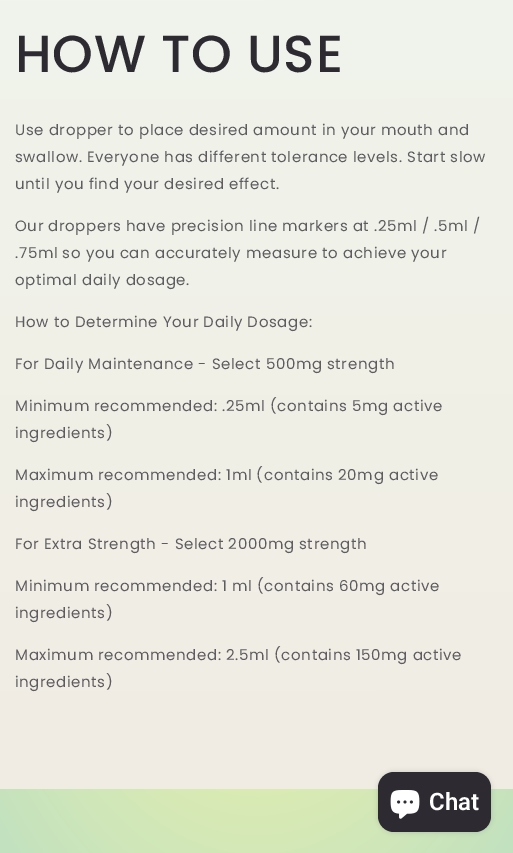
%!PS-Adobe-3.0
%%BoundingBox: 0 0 513 853
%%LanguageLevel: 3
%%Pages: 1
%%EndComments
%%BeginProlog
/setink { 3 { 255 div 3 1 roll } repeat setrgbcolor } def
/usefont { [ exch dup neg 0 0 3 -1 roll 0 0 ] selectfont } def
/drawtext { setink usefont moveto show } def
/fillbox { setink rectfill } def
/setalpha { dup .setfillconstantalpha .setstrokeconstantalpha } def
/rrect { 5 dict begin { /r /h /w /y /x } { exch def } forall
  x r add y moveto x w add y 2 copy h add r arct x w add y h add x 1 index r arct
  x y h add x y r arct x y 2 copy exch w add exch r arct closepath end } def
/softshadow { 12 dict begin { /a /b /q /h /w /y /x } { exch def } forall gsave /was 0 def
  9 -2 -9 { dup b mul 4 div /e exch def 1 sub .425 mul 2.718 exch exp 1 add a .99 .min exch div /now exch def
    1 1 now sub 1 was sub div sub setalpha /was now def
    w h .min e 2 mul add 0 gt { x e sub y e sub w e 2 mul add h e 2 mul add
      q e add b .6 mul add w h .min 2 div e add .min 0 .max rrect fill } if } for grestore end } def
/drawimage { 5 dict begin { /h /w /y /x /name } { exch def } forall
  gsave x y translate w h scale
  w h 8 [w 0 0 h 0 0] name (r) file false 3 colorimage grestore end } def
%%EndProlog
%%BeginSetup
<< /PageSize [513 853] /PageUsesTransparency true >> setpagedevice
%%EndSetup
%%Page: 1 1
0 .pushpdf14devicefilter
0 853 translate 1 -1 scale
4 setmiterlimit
0 0 513 853 255 255 255 fillbox
gsave 0 0 moveto 513 0 lineto 513 789 lineto 0 789 lineto closepath clip newpath
<< /ShadingType 2 /ColorSpace /DeviceRGB /Coords [256 0 257 853] /Extend [true true] /Function << /FunctionType 2 /Domain [0 1] /C0 [0.941 0.957 0.925] /C1 [0.945 0.922 0.886] /N 1 >> >> shfill grestore
/Poppins-Medium 52 usefont
45 42 50 setink
15 72 moveto 0.75 0 (HOW TO USE) ashow
/Poppins-Regular 15 usefont
94 92 96 setink
15 135 moveto 0.6 0 (Use dropper to place desired amount in your mouth and) ashow
15 162 moveto 0.6 0 (swallow. Everyone has different tolerance levels. Start slow) ashow
15 189 moveto 0.6 0 (until you find your desired effect.) ashow
15 231 moveto 0.6 0 (Our droppers have precision line markers at .25ml / .5ml /) ashow
15 258 moveto 0.6 0 (.75ml so you can accurately measure to achieve your) ashow
15 285 moveto 0.6 0 (optimal daily dosage.) ashow
15 327 moveto 0.6 0 (How to Determine Your Daily Dosage:) ashow
15 369 moveto 0.6 0 (For Daily Maintenance - Select 500mg strength) ashow
15 411 moveto 0.6 0 (Minimum recommended: .25ml \(contains 5mg active) ashow
15 438 moveto 0.6 0 (ingredients\)) ashow
15 480 moveto 0.6 0 (Maximum recommended: 1ml \(contains 20mg active) ashow
15 507 moveto 0.6 0 (ingredients\)) ashow
15 549 moveto 0.6 0 (For Extra Strength - Select 2000mg strength) ashow
15 591 moveto 0.6 0 (Minimum recommended: 1 ml \(contains 60mg active) ashow
15 618 moveto 0.6 0 (ingredients\)) ashow
15 660 moveto 0.6 0 (Maximum recommended: 2.5ml \(contains 150mg active) ashow
15 687 moveto 0.6 0 (ingredients\)) ashow
gsave 0 789 moveto 513 789 lineto 513 853 lineto 0 853 lineto closepath clip newpath 257 427 translate 363 603 scale
<< /ShadingType 3 /ColorSpace /DeviceRGB /Coords [0 0 0 0 0 1] /Extend [true true] /Function << /FunctionType 2 /Domain [0 1] /C0 [0.996 0.976 0.624] /C1 [0.757 0.882 0.753] /N 1 >> >> shfill grestore
0 0 0 setink
378 772 113 60 16 2.5 0.15 softshadow
45 42 50 setink
378 772 113 60 16 rrect fill
(assets/img1.rgb) 390 790 30 29 drawimage
(Chat) 429 810 /Roboto-SemiBold 24 255 255 255 drawtext
.poppdf14devicefilter showpage
%%EOF
